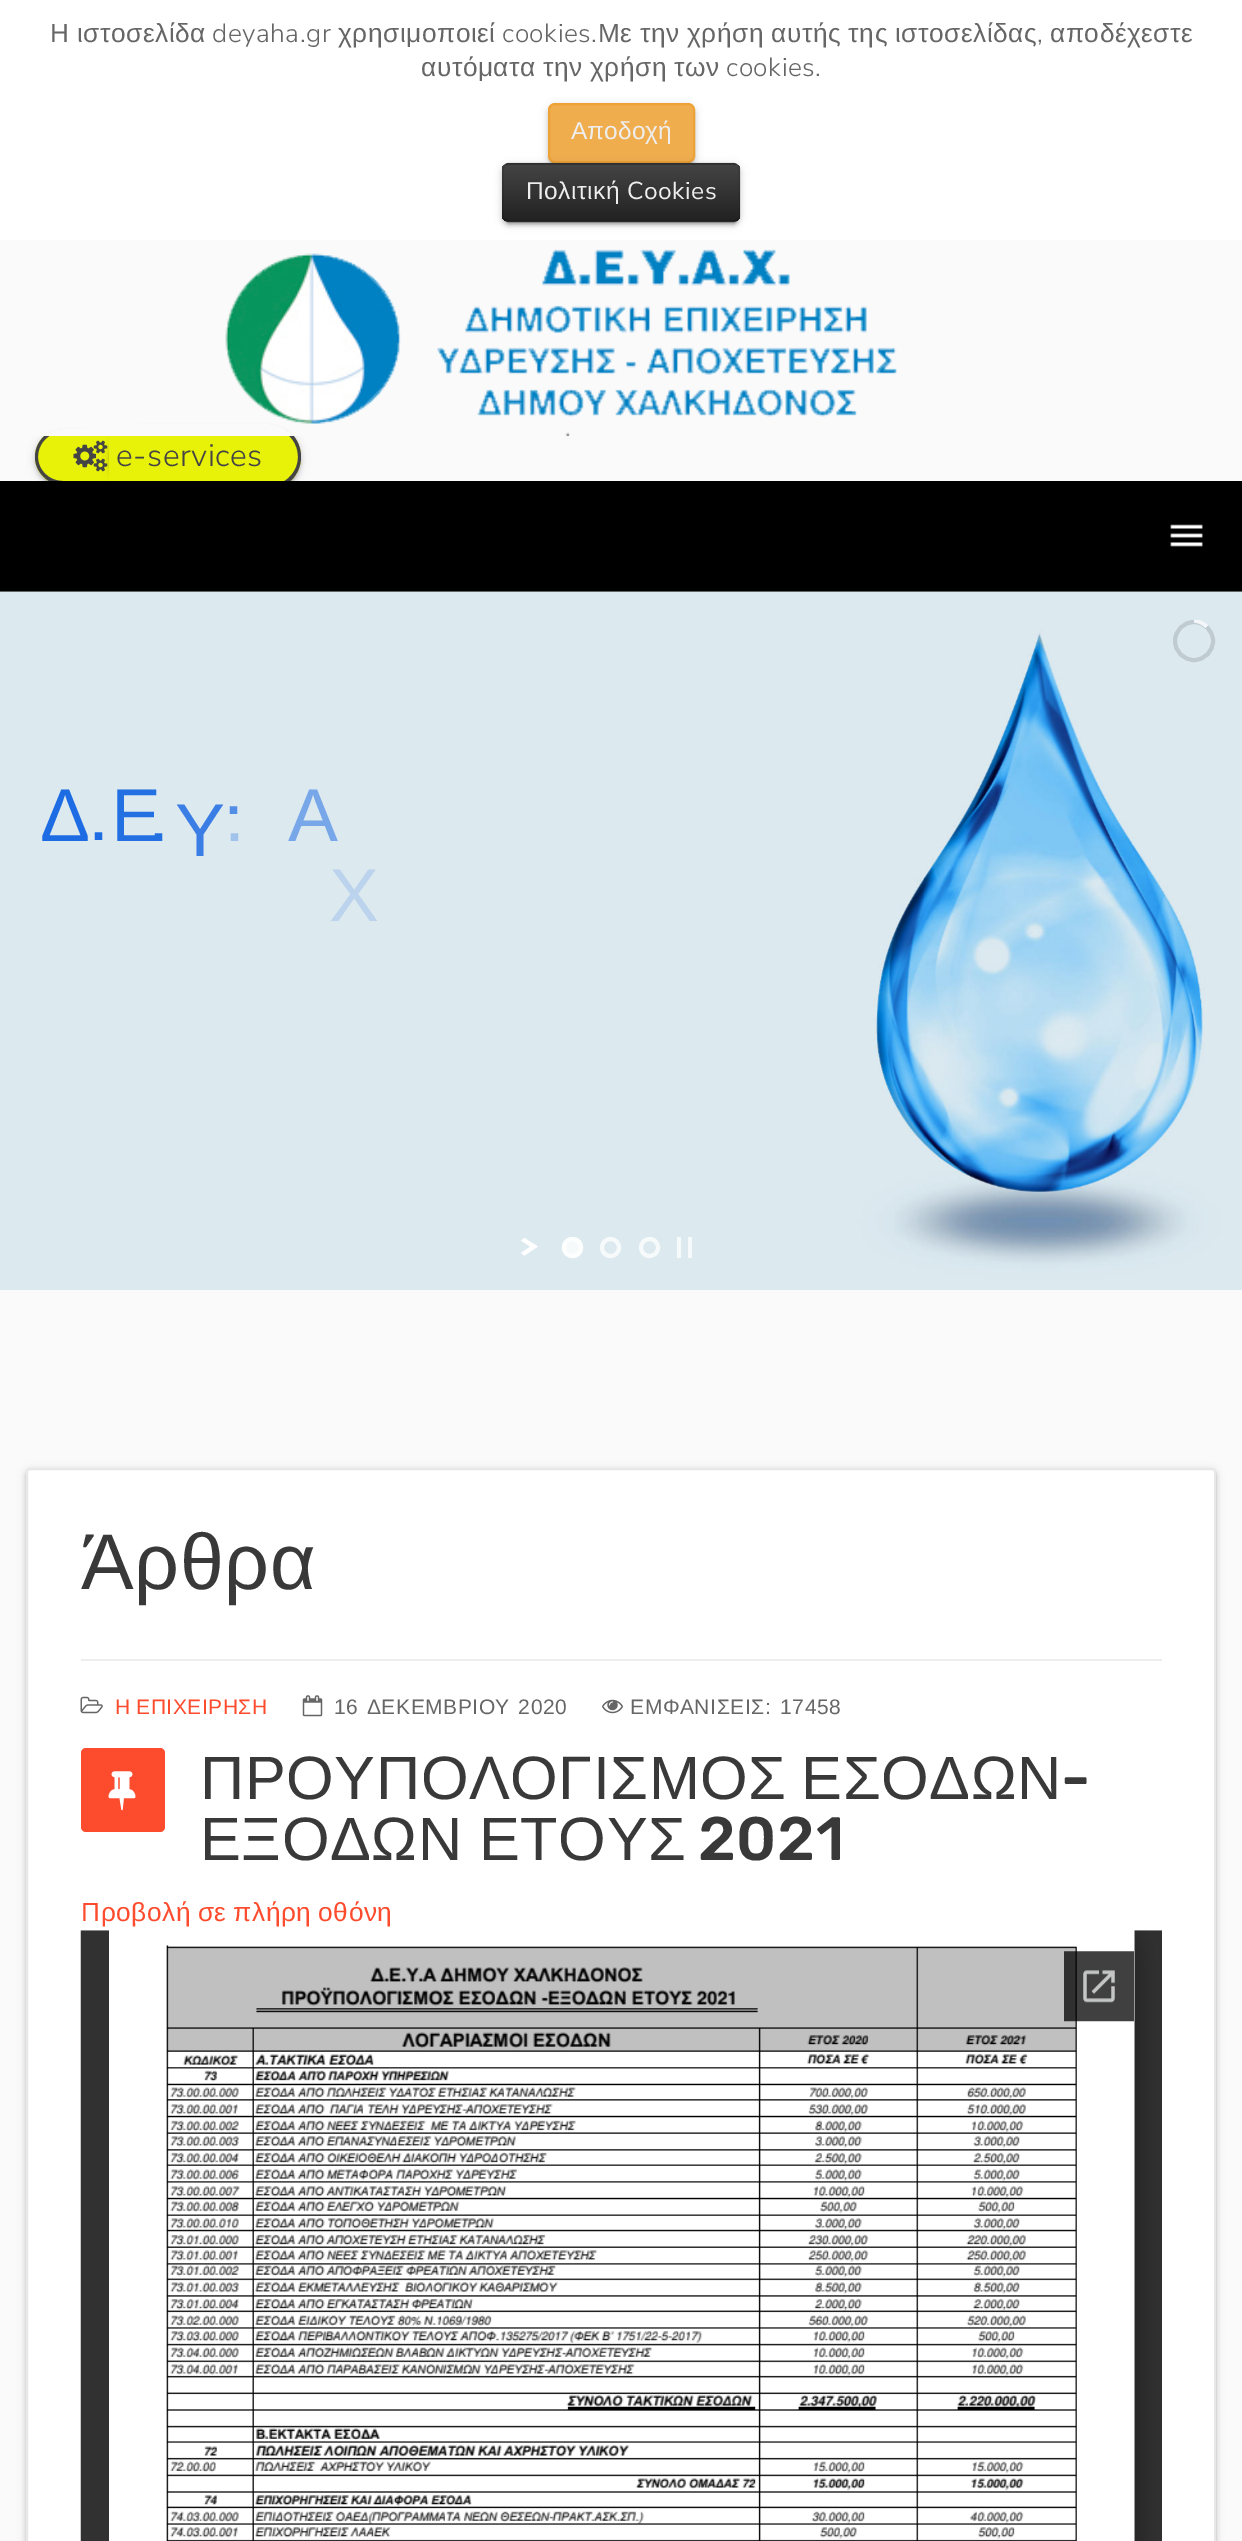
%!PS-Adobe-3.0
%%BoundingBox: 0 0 1242 2541
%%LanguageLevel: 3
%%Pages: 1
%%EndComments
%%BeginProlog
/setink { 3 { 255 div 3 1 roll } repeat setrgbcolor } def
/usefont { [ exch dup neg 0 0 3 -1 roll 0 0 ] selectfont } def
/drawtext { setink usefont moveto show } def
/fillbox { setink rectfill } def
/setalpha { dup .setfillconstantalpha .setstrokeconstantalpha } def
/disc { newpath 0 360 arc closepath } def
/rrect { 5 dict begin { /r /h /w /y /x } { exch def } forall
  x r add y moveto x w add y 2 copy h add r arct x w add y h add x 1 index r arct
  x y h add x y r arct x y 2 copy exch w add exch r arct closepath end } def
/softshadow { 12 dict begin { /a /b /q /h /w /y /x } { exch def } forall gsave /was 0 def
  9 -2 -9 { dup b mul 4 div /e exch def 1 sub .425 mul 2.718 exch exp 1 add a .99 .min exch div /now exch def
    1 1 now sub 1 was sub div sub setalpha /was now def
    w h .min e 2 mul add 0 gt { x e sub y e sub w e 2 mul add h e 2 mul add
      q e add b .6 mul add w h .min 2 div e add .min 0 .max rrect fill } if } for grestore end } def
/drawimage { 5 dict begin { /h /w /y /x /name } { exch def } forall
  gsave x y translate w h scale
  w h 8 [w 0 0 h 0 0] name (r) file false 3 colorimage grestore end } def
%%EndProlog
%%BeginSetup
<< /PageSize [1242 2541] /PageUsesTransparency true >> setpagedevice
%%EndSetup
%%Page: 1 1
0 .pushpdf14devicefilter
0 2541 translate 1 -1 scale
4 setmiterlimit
0 0 1242 2541 255 255 255 fillbox
/LiberationSans-Regular 26.25 usefont
102 102 102 setink
50 42 moveto -0.5 0 32 0.55 0 (Η ιστοσελίδα) awidthshow
/NunitoSans-Light 26.25 usefont
212 42 moveto 0.55 0 (deyaha.gr) ashow
/LiberationSans-Regular 26.25 usefont
338 42 moveto 0.55 0 (χρησιμοποιεί) ashow
/NunitoSans-Light 26.25 usefont
502 42 moveto 0.55 0 (cookies.) ashow
/LiberationSans-Regular 26.25 usefont
598 42 moveto -0.5 0 32 0.55 0 (Με την χρήση αυτής της ιστοσελίδας) awidthshow
/NunitoSans-Light 26.25 usefont
1037 42 moveto 0.55 0 (,) ashow
/LiberationSans-Regular 26.25 usefont
1050 42 moveto 0.55 0 (αποδέχεστε) ashow
421 76 moveto -0.5 0 32 0.55 0 (αυτόματα την χρήση των) awidthshow
/NunitoSans-Light 26.25 usefont
726 76 moveto 0.55 0 (cookies.) ashow
0 0 0 setink
551 112 140 53 4 1 0.2 softshadow
548 105 147 60 7 4.5 0.12 softshadow
548 107 147 59 7 2 0.14 softshadow
240 173 78 setink
549 104 145 58 6 rrect gsave fill grestore
238 162 54 setink
2 setlinewidth
stroke
(Αποδοχή) 571 139 /LiberationSans-Regular 24.5 238 238 238 drawtext
0 0 0 setink
506 172 231 52 4 1 0.2 softshadow
502 165 238 59 7 4.5 0.12 softshadow
502 166 238 60 7 2 0.14 softshadow
54 54 54 setink
502 163 238 59 7 rrect fill
gsave
502 163 238 59 7 rrect clip newpath
gsave 502 165 moveto 740 165 lineto 740 221 lineto 502 221 lineto closepath clip newpath
<< /ShadingType 2 /ColorSpace /DeviceRGB /Coords [621 165 621 221] /Extend [true true] /Function << /FunctionType 2 /Domain [0 1] /C0 [0.267 0.267 0.267] /C1 [0.133 0.133 0.133] /N 1 >> >> shfill grestore
grestore
0.25 setalpha
0 0 0 setink
1.8 setlinewidth
737.5 219.5 moveto 736.5 220.5 735 221.5 733 221.5 curveto 509 221.5 lineto 507.5 221.5 506 220.5 505 219.5 curveto stroke
0.1 setalpha
505 219.5 moveto 504 218.5 503 217 503 215 curveto 503 170 lineto 503 168 504 166.5 505 165.5 curveto 506 164.5 507.5 163.5 509 163.5 curveto 733 163.5 lineto 735 163.5 736.5 164.5 737.5 165.5 curveto 738.5 166.5 739.5 168 739.5 170 curveto 739.5 215 lineto 739.5 217 738.5 218.5 737.5 219.5 curveto stroke
1 setalpha
238 238 238 setink
526 199 moveto 0.55 0 (Πολιτική) ashow
/NunitoSans-Regular 24.5 usefont
627 199 moveto 0.55 0 (Cookies) ashow
0 240 1242 2301 250 250 250 fillbox
(assets/img1.rgb) 225 249 672 187 drawimage
0 0 0 setink
39 438 66 49 24.5 1 0.2 softshadow
gsave
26 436 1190 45 rectclip
35 431 74 56 28 4.5 0.12 softshadow
grestore
gsave
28 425 moveto 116 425 lineto 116 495 lineto 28 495 lineto closepath 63 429 moveto 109 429 lineto 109 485 lineto 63 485 lineto 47.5 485 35 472.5 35 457 curveto 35 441.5 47.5 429 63 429 curveto closepath eoclip newpath
35 432 74 56 28 2 0.14 softshadow
grestore
gsave
26 436 1190 45 rectclip
232 241 8 setink
63 429 moveto 109 429 lineto 109 485 lineto 63 485 lineto 47.5 485 35 472.5 35 457 curveto 35 441.5 47.5 429 63 429 curveto closepath fill
68 68 68 setink
63 429 moveto 108 429 lineto 108 485 lineto 63 485 lineto 48 485 35 472 35 457 curveto 35 441 48 429 63 429 curveto closepath 63 432 moveto 108 432 lineto 108 481 lineto 63 481 lineto 49 481 38 470 38 457 curveto 38 443 49 432 63 432 curveto closepath eofill
grestore
gsave
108 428 moveto 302 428 lineto 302 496 lineto 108 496 lineto closepath 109 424 moveto 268 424 lineto 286 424 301 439 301 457 curveto 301 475 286 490 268 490 curveto 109 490 lineto closepath eoclip newpath
112 432 186 60 30 1 0.2 softshadow
grestore
gsave
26 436 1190 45 rectclip
109 425 192 67 33.5 4.5 0.12 softshadow
grestore
gsave
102 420 moveto 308 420 lineto 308 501 lineto 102 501 lineto closepath 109 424 moveto 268 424 lineto 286 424 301 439 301 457 curveto 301 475 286 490 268 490 curveto 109 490 lineto closepath eoclip newpath
109 427 192 67 33.5 2 0.14 softshadow
grestore
gsave
26 436 1190 45 rectclip
232 241 8 setink
109 424 moveto 268 424 lineto 286 424 301 439 301 457 curveto 301 475 286 490 268 490 curveto 109 490 lineto closepath fill
68 68 68 setink
108 424 moveto 268 424 lineto 286 424 301 438 301 457 curveto 301 475 286 490 268 490 curveto 108 490 lineto closepath 108 427 moveto 268 427 lineto 284 427 298 440 298 457 curveto 298 473 284 486 268 486 curveto 108 486 lineto closepath eofill
grestore
(assets/img2.rgb) 73 440 35 32 drawimage
/NunitoSans-Light 31.5 usefont
68 68 68 setink
116 466 moveto 0.55 0 (e-services) ashow
0 481 1242 111 0 0 0 fillbox
(assets/img3.rgb) 1170 524 33 23 drawimage
(assets/img4.rgb) 0 591 1242 699 drawimage
191 203 208 setink
4 setlinewidth
1194 641 19 disc stroke
gsave
1194 620 21 42 rectclip
1191.5 610.5 moveto 1207.5 624.5 lineto 1179.5 656 lineto 1164 642 lineto closepath clip newpath
243 247 249 setink
3.5 setlinewidth
1206 626 moveto 1225 642.5 1199.5 671.5 1181 654.5 curveto 1162 638 1187.5 609 1206 626 curveto closepath stroke
grestore
(Δ) 40 841 /LiberationSans-Regular 75 29 108 227 drawtext
(Ε) 111 841 /LiberationSans-Regular 75 35 112 227 drawtext
(Υ) 175 856 /LiberationSans-Regular 75 58 126 229 drawtext
(.) 225 814 /NunitoSans-Regular 75 82 142 230 drawtext
(Α) 288 841 /LiberationSans-Regular 75 119 167 233 drawtext
(.) 90 840 /NunitoSans-Regular 75 29 108 227 drawtext
(.) 150 841 /NunitoSans-Regular 75 35 112 227 drawtext
(.) 226 841 /NunitoSans-Regular 75 160 194 235 drawtext
(Χ) 329 921 /LiberationSans-Regular 75 187 211 237 drawtext
255 255 255 setink
524.5 1238 moveto 537.5 1246.5 lineto 534 1249 lineto 521 1240.5 lineto closepath fill
534 1244 moveto 537.5 1246.5 lineto 524.5 1255.5 lineto 521 1253 lineto closepath fill
246 250 251 setink
572.5 1247.5 10.5 disc fill
0.75 setalpha
255 255 255 setink
572.5 1247.5 8.5 disc stroke
1 setalpha
246 250 251 setink
610.5 1247.5 8.5 disc stroke
649.5 1247.5 8.5 disc stroke
688 1237 4 21 246 250 251 fillbox
677 1237 4 21 246 250 251 fillbox
0 0 0 setink
26 1470 1190 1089 4 4.5 0.12 softshadow
26 1472 1190 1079 4 2 0.14 softshadow
255 255 255 setink
26 1468 1190 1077 4 rrect fill
0.09 setalpha
0 0 0 setink
2 setlinewidth
27 1469 1188 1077 3 rrect stroke
1 setalpha
81 1659 1081 2 238 238 238 fillbox
/LiberationSans-Regular 79 usefont
57 57 57 setink
81 1589 moveto 0.55 0 (Άρθρα) ashow
(assets/img5.rgb) 80 1696 23 18 drawimage
/LiberationSans-Regular 21 usefont
253 75 46 setink
115 1714 moveto -1 0 32 0.55 0 (Η ΕΠΙΧΕΙΡΗΣΗ) awidthshow
(assets/img6.rgb) 302 1695 21 22 drawimage
102 102 102 setink
334 1714 moveto 2 0 32 0.55 0 (16 ΔΕΚΕΜΒΡΙΟΥ 2020) awidthshow
(assets/img7.rgb) 602 1699 21 15 drawimage
630 1714 moveto 3 0 32 0.55 0 (ΕΜΦΑΝΙΣΕΙΣ: 17458) awidthshow
253 75 46 setink
81 1748 84 84 5 rrect fill
(assets/img8.rgb) 108 1771 28 40 drawimage
/LiberationSans-Regular 61.25 usefont
57 57 57 setink
200 1799 moveto -3 0 32 0.55 0 (ΠΡΟΥΠΟΛΟΓΙΣΜΟΣ ΕΣΟΔΩΝ) awidthshow
/Rubik-Medium 61.25 usefont
1061 1799 moveto 0.55 0 (-) ashow
/LiberationSans-Regular 61.25 usefont
200 1860 moveto -1 0 32 0.55 0 (ΕΞΟΔΩΝ ΕΤΟΥΣ) awidthshow
/Rubik-Medium 61.25 usefont
698 1860 moveto 0.55 0 (2021) ashow
/LiberationSans-Regular 26.25 usefont
253 75 46 setink
81 1921 moveto -1 0 32 0.55 0 (Προβολή σε πλήρη οθόνη) awidthshow
(assets/img9.rgb) 80 1930 1082 611 drawimage
.poppdf14devicefilter showpage
%%EOF
